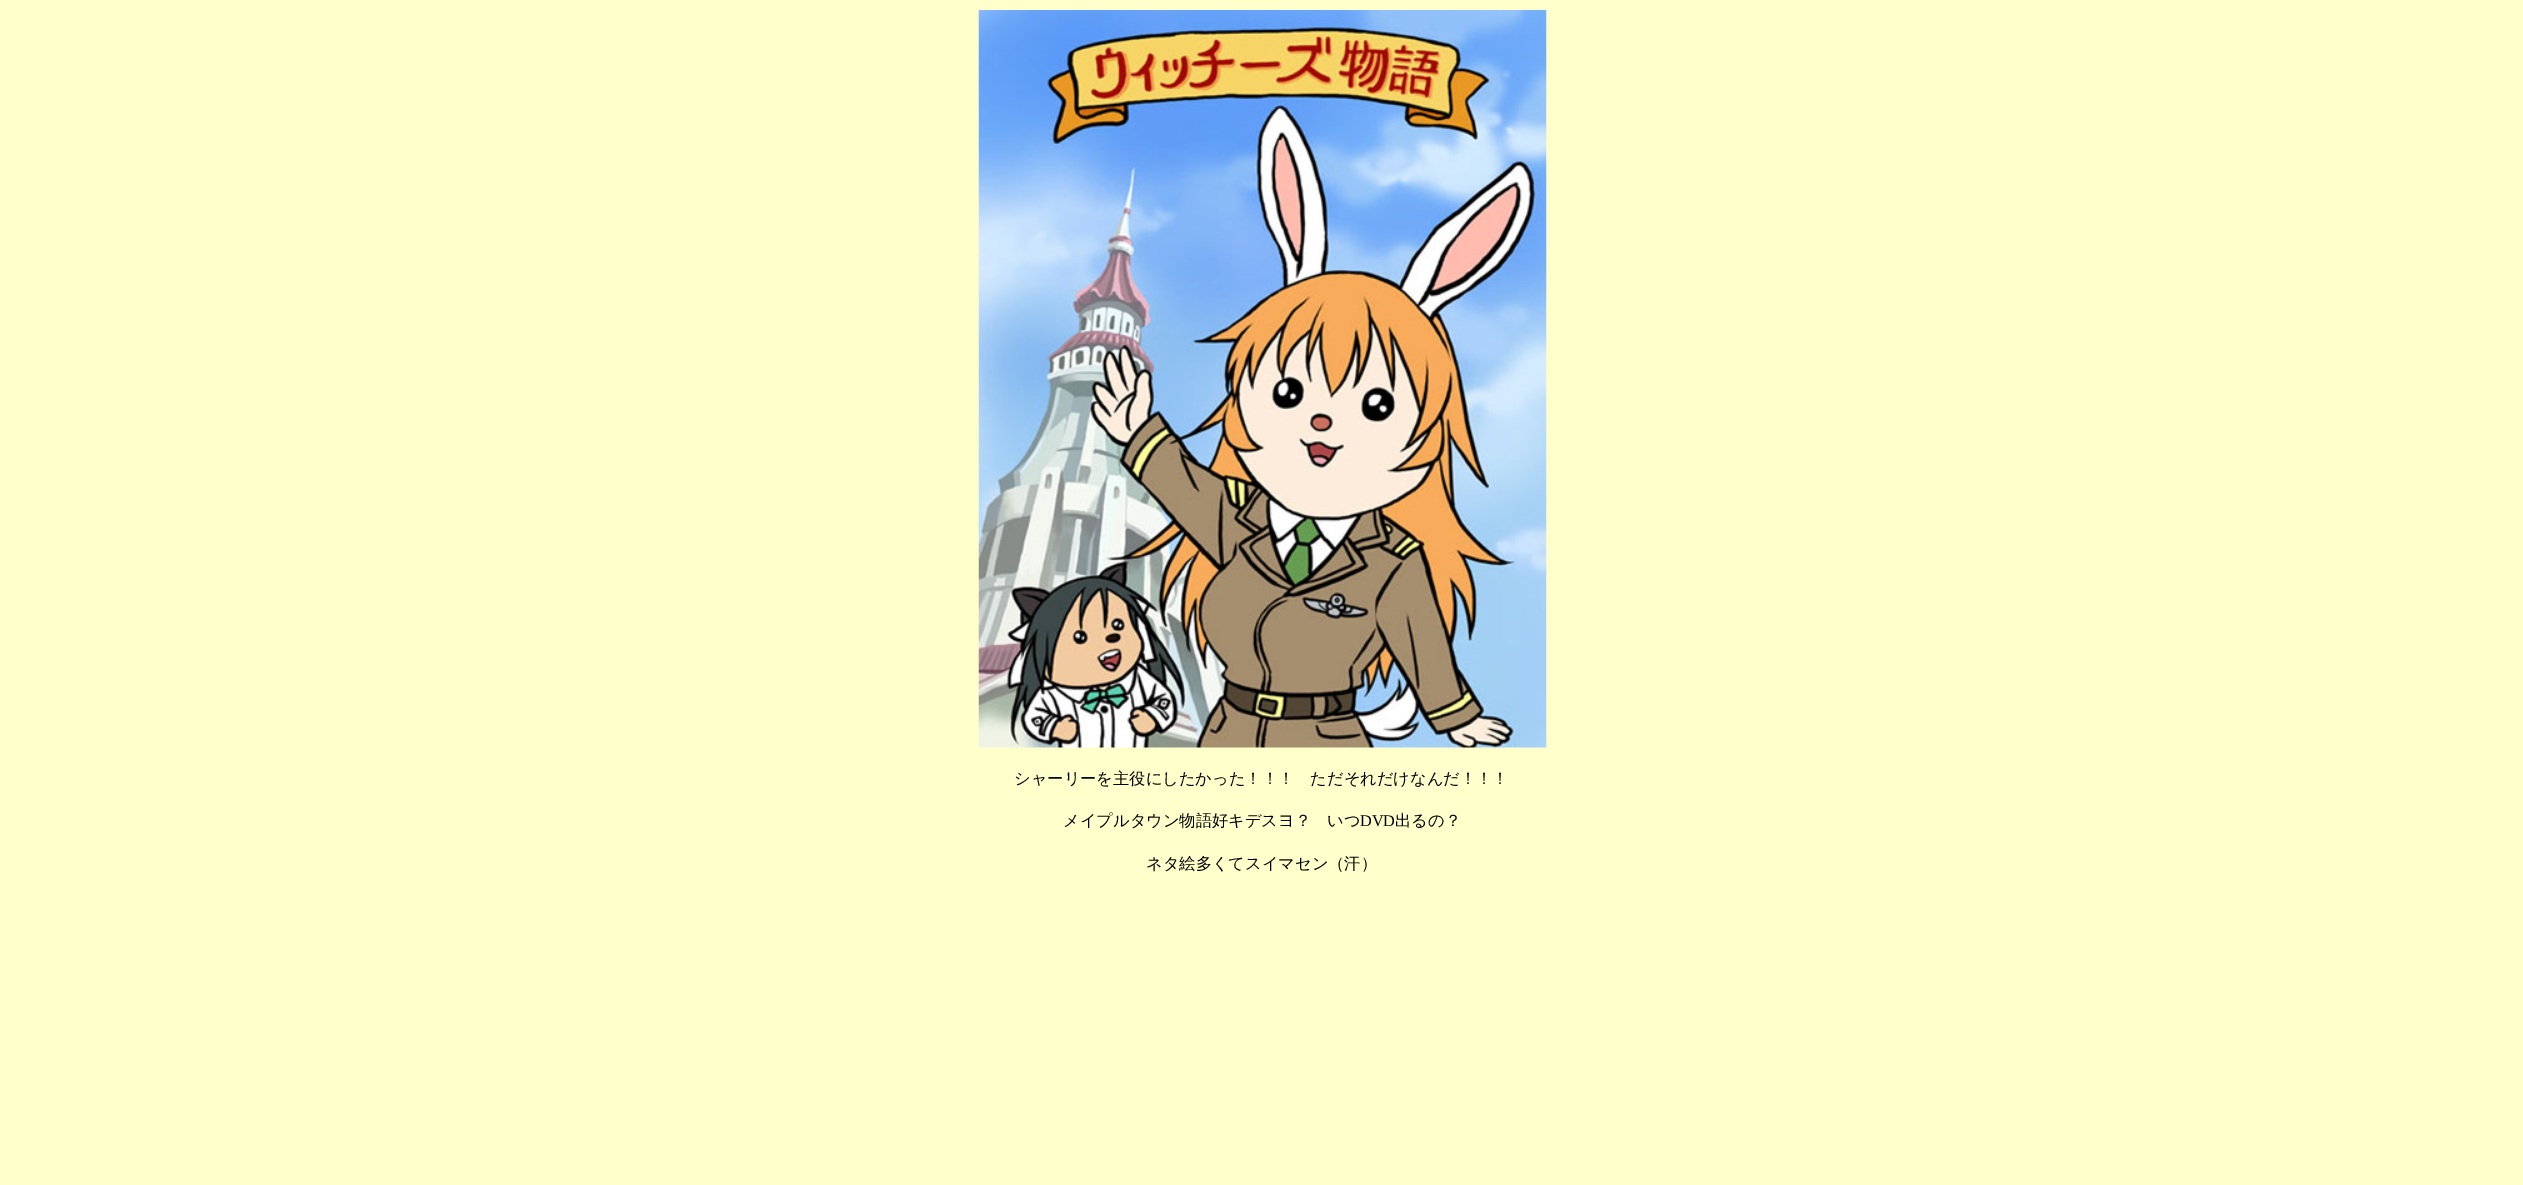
%!PS-Adobe-3.0
%%BoundingBox: 0 0 2523 1185
%%LanguageLevel: 3
%%Pages: 1
%%EndComments
%%BeginProlog
/setink { 3 { 255 div 3 1 roll } repeat setrgbcolor } def
/usefont { [ exch dup neg 0 0 3 -1 roll 0 0 ] selectfont } def
/drawtext { setink usefont moveto show } def
/fillbox { setink rectfill } def
/drawimage { 5 dict begin { /h /w /y /x /name } { exch def } forall
  gsave x y translate w h scale
  w h 8 [w 0 0 h 0 0] name (r) file false 3 colorimage grestore end } def
%%EndProlog
%%BeginSetup
<< /PageSize [2523 1185] >> setpagedevice
%%EndSetup
%%Page: 1 1
0 1185 translate 1 -1 scale
4 setmiterlimit
0 0 2523 1185 255 255 204 fillbox
(assets/img1.rgb) 978 10 569 738 drawimage
(シャーリーを主役にしたかった！！！　ただそれだけなんだ！！！) 1014 784 /WenQuanYiZenHei-Medium 16.25 0 0 0 drawtext
(メイプルタウン物語好キデスヨ？　いつ) 1063 826 /WenQuanYiZenHei-Medium 16.25 0 0 0 drawtext
(DVD) 1360 826 /LiberationSerif-Regular 16.25 0 0 0 drawtext
(出るの？) 1395 826 /WenQuanYiZenHei-Medium 16.25 0 0 0 drawtext
(ネタ絵多くてスイマセン（汗）) 1146 869 /WenQuanYiZenHei-Medium 16.25 0 0 0 drawtext
showpage
%%EOF
